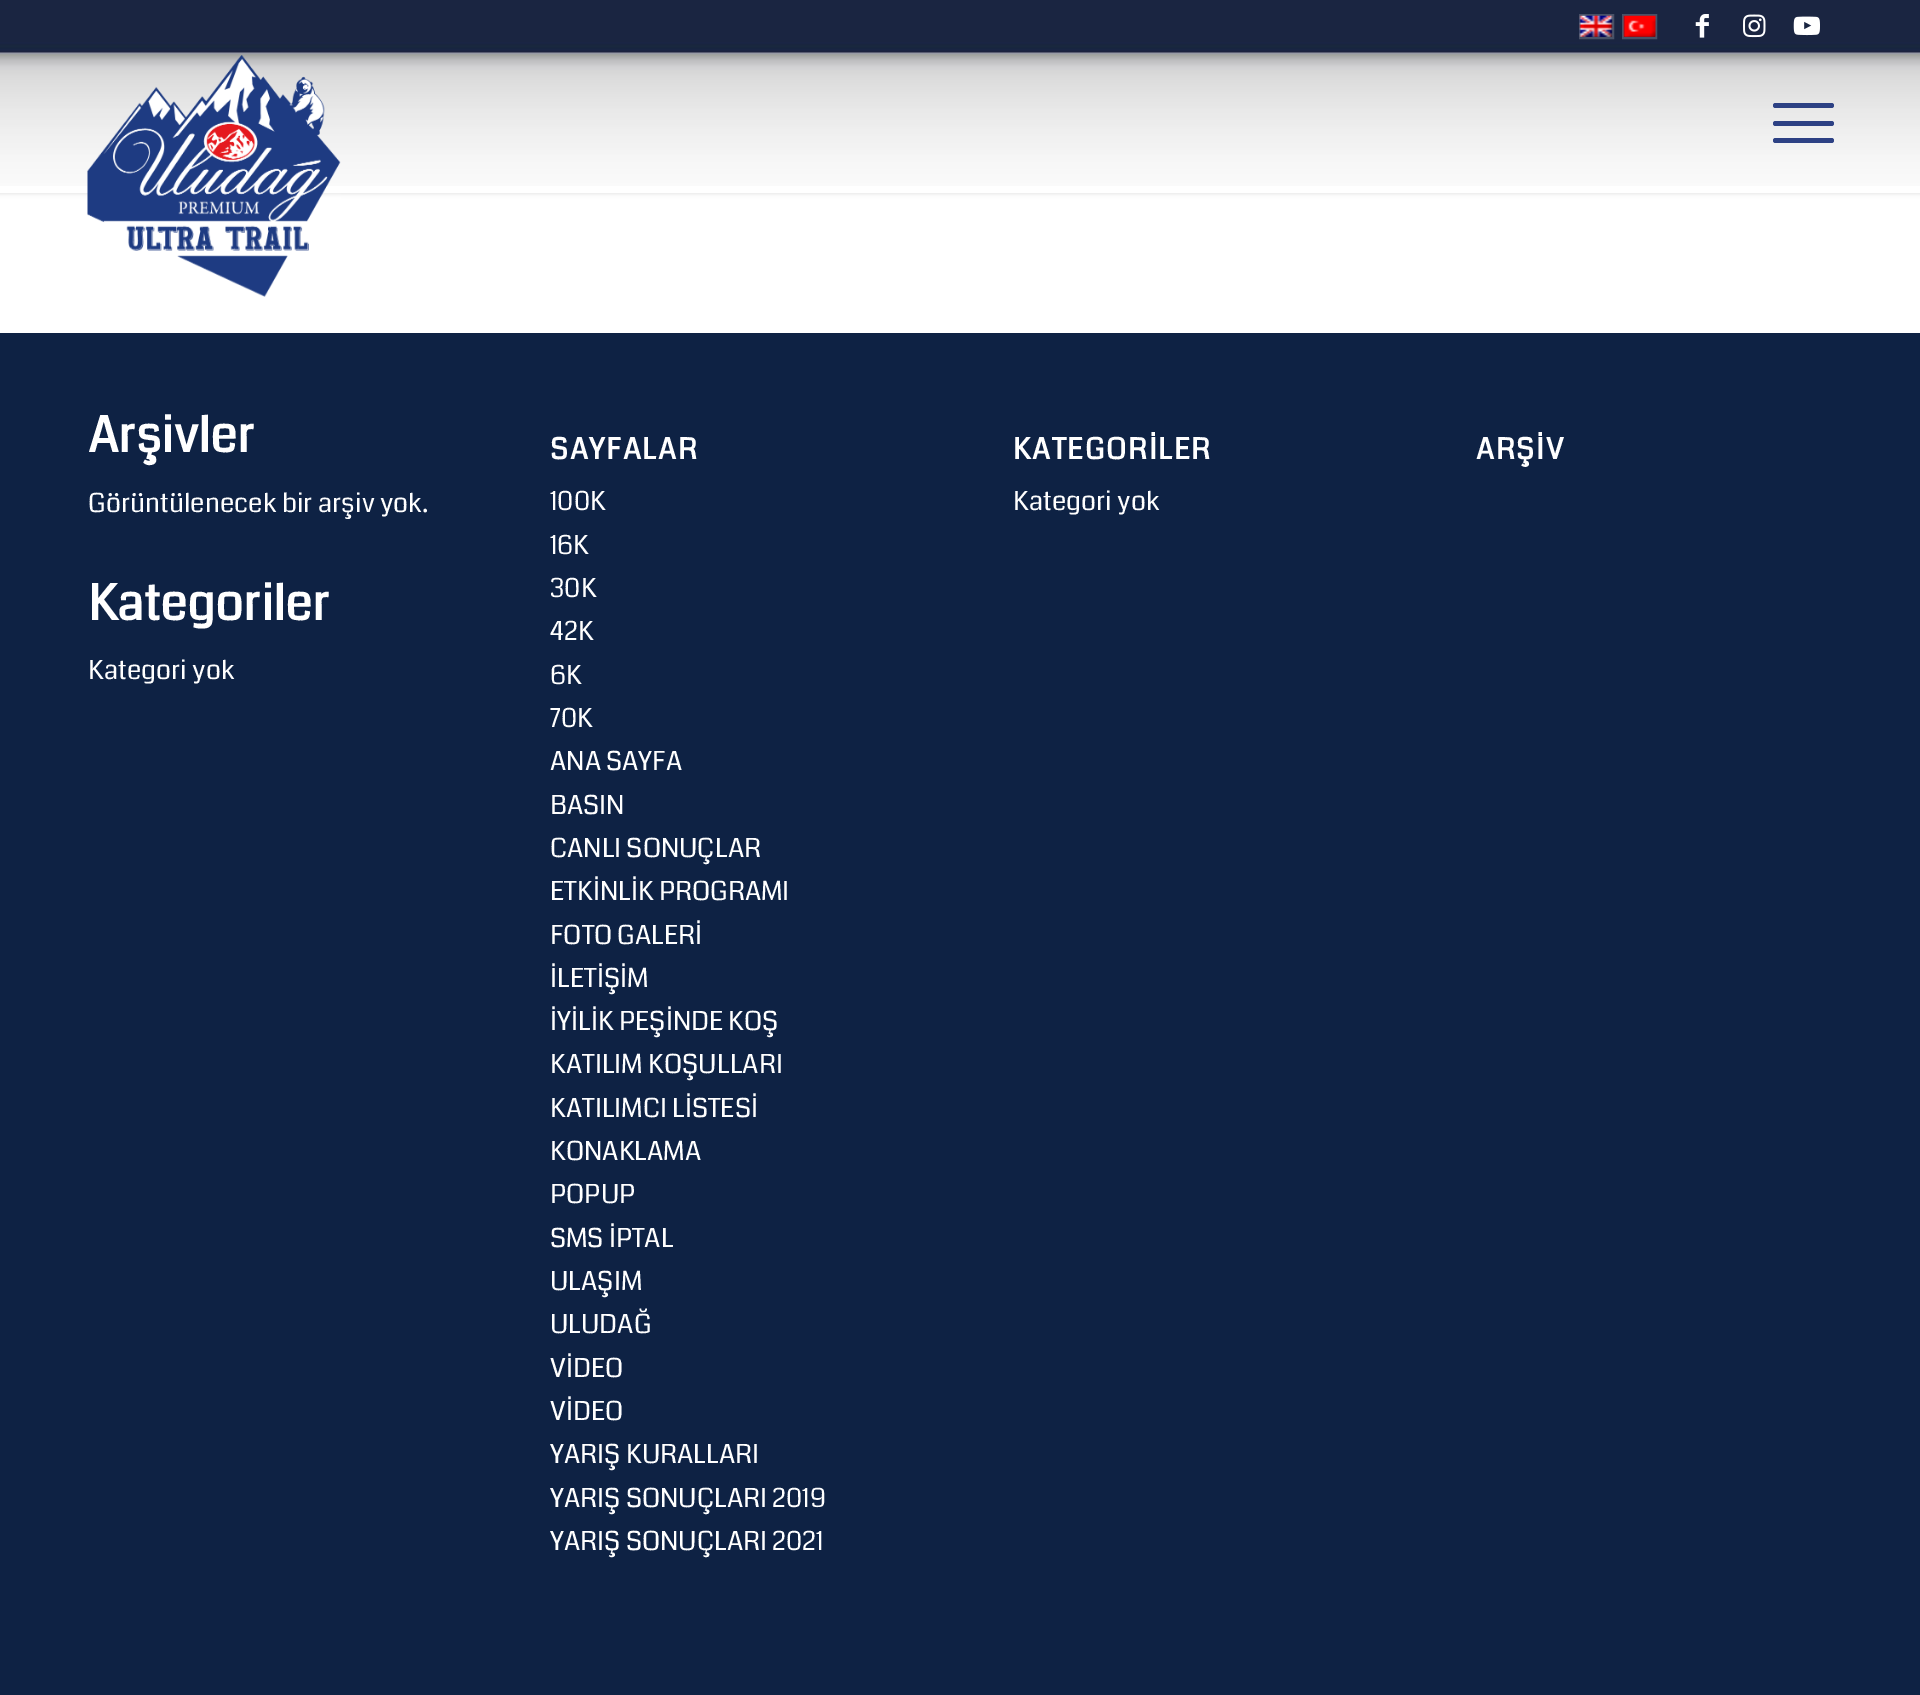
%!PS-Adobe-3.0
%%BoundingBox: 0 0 1920 1695
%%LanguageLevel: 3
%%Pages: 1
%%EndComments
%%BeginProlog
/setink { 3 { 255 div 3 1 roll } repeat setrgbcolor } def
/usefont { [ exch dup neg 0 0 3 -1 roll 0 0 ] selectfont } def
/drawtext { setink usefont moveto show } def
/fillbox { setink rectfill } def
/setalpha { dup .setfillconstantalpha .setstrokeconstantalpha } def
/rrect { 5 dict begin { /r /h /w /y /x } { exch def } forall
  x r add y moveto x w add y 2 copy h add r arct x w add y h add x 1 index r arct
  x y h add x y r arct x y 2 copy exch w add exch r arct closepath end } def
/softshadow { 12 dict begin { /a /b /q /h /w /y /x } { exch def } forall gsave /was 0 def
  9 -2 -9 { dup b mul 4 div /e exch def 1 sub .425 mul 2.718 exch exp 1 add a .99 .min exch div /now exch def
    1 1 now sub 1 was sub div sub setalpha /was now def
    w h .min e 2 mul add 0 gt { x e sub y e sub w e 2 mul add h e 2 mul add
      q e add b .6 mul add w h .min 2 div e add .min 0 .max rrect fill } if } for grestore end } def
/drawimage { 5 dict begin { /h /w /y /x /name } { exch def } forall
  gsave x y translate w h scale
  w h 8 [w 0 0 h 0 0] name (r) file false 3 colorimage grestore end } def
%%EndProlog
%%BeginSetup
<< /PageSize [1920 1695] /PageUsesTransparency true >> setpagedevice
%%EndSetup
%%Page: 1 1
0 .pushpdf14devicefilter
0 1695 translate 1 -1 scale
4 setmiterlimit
0 0 1920 1695 255 255 255 fillbox
0 0 0 setink
-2 -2 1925 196 0 2 0.1 softshadow
0 186 1920 7 255 255 255 fillbox
(assets/img1.rgb) 0 0 1920 186 drawimage
72 81 103 setink
2 setlinewidth
1580 15 33 23 rectstroke
(assets/img2.rgb) 1579 15 34 22 drawimage
1623 15 33 23 rectstroke
(assets/img3.rgb) 1623 15 33 22 drawimage
(assets/img4.rgb) 1695 14 14 24 drawimage
(assets/img5.rgb) 1743 14 23 24 drawimage
(assets/img6.rgb) 1793 16 27 20 drawimage
(assets/img7.rgb) 87 55 254 242 drawimage
45 65 132 setink
1773 121 61 5 2.5 rrect fill
1773 103 61 5 2.5 rrect fill
1773 138 61 5 2.5 rrect fill
0 333 1920 1362 14 34 68 fillbox
(Arşivler) 88 452 /Coda-Bold 49 255 255 255 drawtext
(Görüntülenecek bir arşiv yok.) 88 512 /Coda-Regular 26.25 255 255 255 drawtext
(Kategoriler) 88 620 /Coda-Bold 49 255 255 255 drawtext
(Kategori yok) 88 679 /Coda-Regular 26.25 255 255 255 drawtext
/Coda-Bold 29 usefont
550 459 moveto 1.75 0 (SAYFALAR) ashow
(100K) 550 510 /Coda-Regular 26.25 255 255 255 drawtext
(16K) 550 554 /Coda-Regular 26.25 255 255 255 drawtext
(30K) 550 597 /Coda-Regular 26.25 255 255 255 drawtext
(42K) 550 640 /Coda-Regular 26.25 255 255 255 drawtext
(6K) 550 684 /Coda-Regular 26.25 255 255 255 drawtext
(70K) 550 727 /Coda-Regular 26.25 255 255 255 drawtext
(ANA SAYFA) 550 770 /Coda-Regular 26.25 255 255 255 drawtext
(BASIN) 550 814 /Coda-Regular 26.25 255 255 255 drawtext
(CANLI SONUÇLAR) 550 857 /Coda-Regular 26.25 255 255 255 drawtext
(ETKİNLİK PROGRAMI) 550 900 /Coda-Regular 26.25 255 255 255 drawtext
(FOTO GALERİ) 550 944 /Coda-Regular 26.25 255 255 255 drawtext
(İLETİŞİM) 550 987 /Coda-Regular 26.25 255 255 255 drawtext
(İYİLİK PEŞİNDE KOŞ) 550 1030 /Coda-Regular 26.25 255 255 255 drawtext
(KATILIM KOŞULLARI) 550 1073 /Coda-Regular 26.25 255 255 255 drawtext
(KATILIMCI LİSTESİ) 550 1117 /Coda-Regular 26.25 255 255 255 drawtext
(KONAKLAMA) 550 1160 /Coda-Regular 26.25 255 255 255 drawtext
(POPUP) 550 1203 /Coda-Regular 26.25 255 255 255 drawtext
(SMS İPTAL) 550 1247 /Coda-Regular 26.25 255 255 255 drawtext
(ULAŞIM) 550 1290 /Coda-Regular 26.25 255 255 255 drawtext
(ULUDAĞ) 550 1333 /Coda-Regular 26.25 255 255 255 drawtext
(VİDEO) 550 1377 /Coda-Regular 26.25 255 255 255 drawtext
(VİDEO) 550 1420 /Coda-Regular 26.25 255 255 255 drawtext
(YARIŞ KURALLARI) 550 1463 /Coda-Regular 26.25 255 255 255 drawtext
(YARIŞ SONUÇLARI 2019) 550 1507 /Coda-Regular 26.25 255 255 255 drawtext
(YARIŞ SONUÇLARI 2021) 550 1550 /Coda-Regular 26.25 255 255 255 drawtext
/Coda-Bold 29 usefont
1013 459 moveto 1.75 0 (KATEGORİLER) ashow
(Kategori yok) 1013 510 /Coda-Regular 26.25 255 255 255 drawtext
/Coda-Bold 29 usefont
1476 459 moveto 1.75 0 (ARŞİV) ashow
.poppdf14devicefilter showpage
%%EOF
